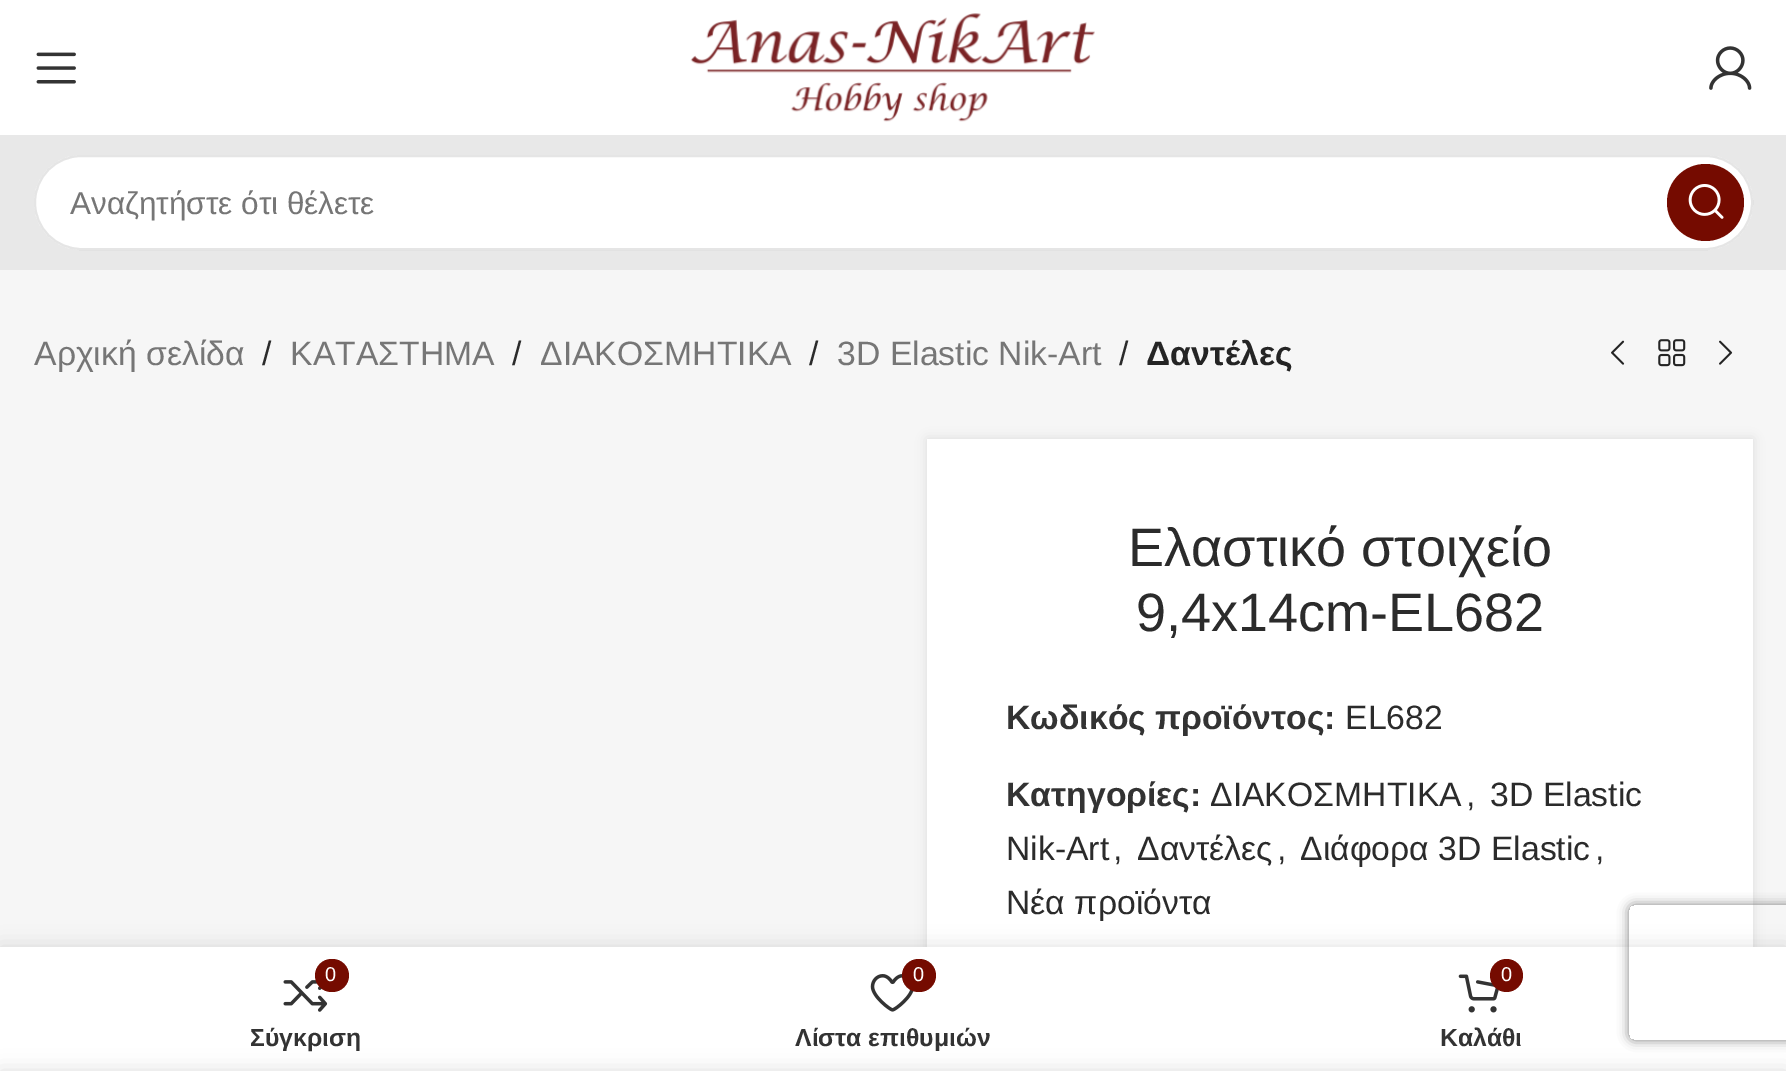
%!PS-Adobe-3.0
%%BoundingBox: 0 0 1786 1071
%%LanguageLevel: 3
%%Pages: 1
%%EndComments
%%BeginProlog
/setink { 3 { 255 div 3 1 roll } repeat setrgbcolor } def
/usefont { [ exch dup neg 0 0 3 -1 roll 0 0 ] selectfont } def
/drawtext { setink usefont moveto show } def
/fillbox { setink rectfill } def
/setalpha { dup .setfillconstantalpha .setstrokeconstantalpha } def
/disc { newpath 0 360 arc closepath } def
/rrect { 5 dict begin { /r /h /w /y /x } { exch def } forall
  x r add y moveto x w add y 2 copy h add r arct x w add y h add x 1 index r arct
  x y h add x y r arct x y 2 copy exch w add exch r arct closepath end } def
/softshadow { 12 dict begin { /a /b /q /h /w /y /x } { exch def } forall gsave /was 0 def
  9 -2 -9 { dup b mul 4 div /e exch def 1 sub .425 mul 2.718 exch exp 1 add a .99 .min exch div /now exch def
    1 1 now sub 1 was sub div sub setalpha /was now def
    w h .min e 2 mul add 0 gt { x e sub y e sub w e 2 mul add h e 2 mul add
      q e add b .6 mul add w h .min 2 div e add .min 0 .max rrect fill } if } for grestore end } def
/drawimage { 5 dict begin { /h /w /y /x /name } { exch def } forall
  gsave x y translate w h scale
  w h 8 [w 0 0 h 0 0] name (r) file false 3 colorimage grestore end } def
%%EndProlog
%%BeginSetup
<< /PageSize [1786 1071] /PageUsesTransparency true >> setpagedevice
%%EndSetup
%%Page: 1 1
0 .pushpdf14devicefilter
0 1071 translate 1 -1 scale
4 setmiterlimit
0 0 1786 1071 255 255 255 fillbox
(assets/img1.rgb) 36 52 40 32 drawimage
(assets/img2.rgb) 690 13 405 109 drawimage
(assets/img3.rgb) 1709 46 43 44 drawimage
0 135 1786 135 232 232 232 fillbox
255 255 255 setink
34 155 1719 95 47.5 rrect fill
0.1 setalpha
0 0 0 setink
2 setlinewidth
35 156 1717 93 46.5 rrect stroke
1 setalpha
(Αναζητήστε ότι θέλετε) 70 214 /LiberationSans-Regular 31.5 118 118 118 drawtext
117 11 0 setink
1705.5 202.5 38.5 disc fill
(assets/img4.rgb) 1688 184 36 35 drawimage
0 270 1786 677 246 246 246 fillbox
(Αρχική σελίδα) 34 365 /LiberationSans-Regular 33.75 118 118 118 drawtext
(/) 262 365 /LiberationSans-Regular 33.75 43 43 43 drawtext
(ΚΑΤΑΣΤΗΜΑ) 290 365 /LiberationSans-Regular 33.75 118 118 118 drawtext
(/) 512 365 /LiberationSans-Regular 33.75 43 43 43 drawtext
(ΔΙΑΚΟΣΜΗΤΙΚΑ) 540 365 /LiberationSans-Regular 33.75 118 118 118 drawtext
(/) 809 365 /LiberationSans-Regular 33.75 43 43 43 drawtext
(3D Elastic Nik-Art) 837 365 /LiberationSans-Regular 33.75 118 118 118 drawtext
(/) 1119 365 /LiberationSans-Regular 33.75 43 43 43 drawtext
(Δαντέλες) 1146 365 /LiberationSans-Bold 33.75 36 36 36 drawtext
(assets/img5.rgb) 1611 340 14 25 drawimage
(assets/img6.rgb) 1658 339 28 28 drawimage
(assets/img7.rgb) 1719 340 14 25 drawimage
0 0 0 setink
927 439 826 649 0 5.5 0.1 softshadow
927 439 826 508 255 255 255 fillbox
(Ελαστικό στοιχείο) 1128 566 /LiberationSans-Regular 54 43 43 43 drawtext
(9,4x14cm-EL682) 1136 631 /LiberationSans-Regular 54 43 43 43 drawtext
(Κωδικός προϊόντος:) 1006 729 /LiberationSans-Bold 33.75 51 51 51 drawtext
(EL682) 1345 729 /LiberationSans-Regular 33.75 43 43 43 drawtext
(Κατηγορίες:) 1006 806 /LiberationSans-Bold 33.75 51 51 51 drawtext
(ΔΙΑΚΟΣΜΗΤΙΚΑ) 1210 806 /LiberationSans-Regular 33.75 43 43 43 drawtext
(,) 1466 806 /LiberationSans-Regular 33.75 43 43 43 drawtext
(3D Elastic) 1490 806 /LiberationSans-Regular 33.75 43 43 43 drawtext
(Nik-Art) 1006 860 /LiberationSans-Regular 33.75 43 43 43 drawtext
(,) 1113 860 /LiberationSans-Regular 33.75 43 43 43 drawtext
(Δαντέλες) 1137 860 /LiberationSans-Regular 33.75 43 43 43 drawtext
(,) 1277 860 /LiberationSans-Regular 33.75 43 43 43 drawtext
(Διάφορα 3D Elastic) 1300 860 /LiberationSans-Regular 33.75 43 43 43 drawtext
(,) 1595 860 /LiberationSans-Regular 33.75 43 43 43 drawtext
(Νέα προϊόντα) 1006 914 /LiberationSans-Regular 33.75 43 43 43 drawtext
0 0 0 setink
0 947 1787 124 0 10 0.12 softshadow
0 947 1786 124 255 255 255 fillbox
(assets/img8.rgb) 283 980 45 32 drawimage
117 11 0 setink
315 959 34 33 16.5 rrect fill
(0) 325 981 /LiberationSans-Regular 20 255 255 255 drawtext
(Σύγκριση) 250 1046 /LiberationSans-Bold 24.75 51 51 51 drawtext
(assets/img9.rgb) 870 974 44 38 drawimage
117 11 0 setink
902 959 34 33 16.5 rrect fill
(0) 913 981 /LiberationSans-Regular 20 255 255 255 drawtext
(Λίστα επιθυμιών) 795 1046 /LiberationSans-Bold 24.75 51 51 51 drawtext
(assets/img10.rgb) 1458 974 41 39 drawimage
117 11 0 setink
1506.5 975.5 16.5 disc fill
(0) 1501 981 /LiberationSans-Regular 20 255 255 255 drawtext
(Καλάθι) 1440 1046 /LiberationSans-Bold 24.75 51 51 51 drawtext
gsave
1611 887 moveto 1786 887 lineto 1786 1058 lineto 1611 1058 lineto closepath 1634 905 moveto 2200 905 lineto 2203 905 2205 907 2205 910 curveto 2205 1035 lineto 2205 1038 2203 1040 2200 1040 curveto 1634 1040 lineto 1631 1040 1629 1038 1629 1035 curveto 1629 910 lineto 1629 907 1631 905 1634 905 curveto closepath eoclip newpath
128 128 128 setink
1629 905 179 135 5 5.5 1 softshadow
grestore
0 0 0 setink
0 1071 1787 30 0 10 0.14 softshadow
.poppdf14devicefilter showpage
%%EOF
